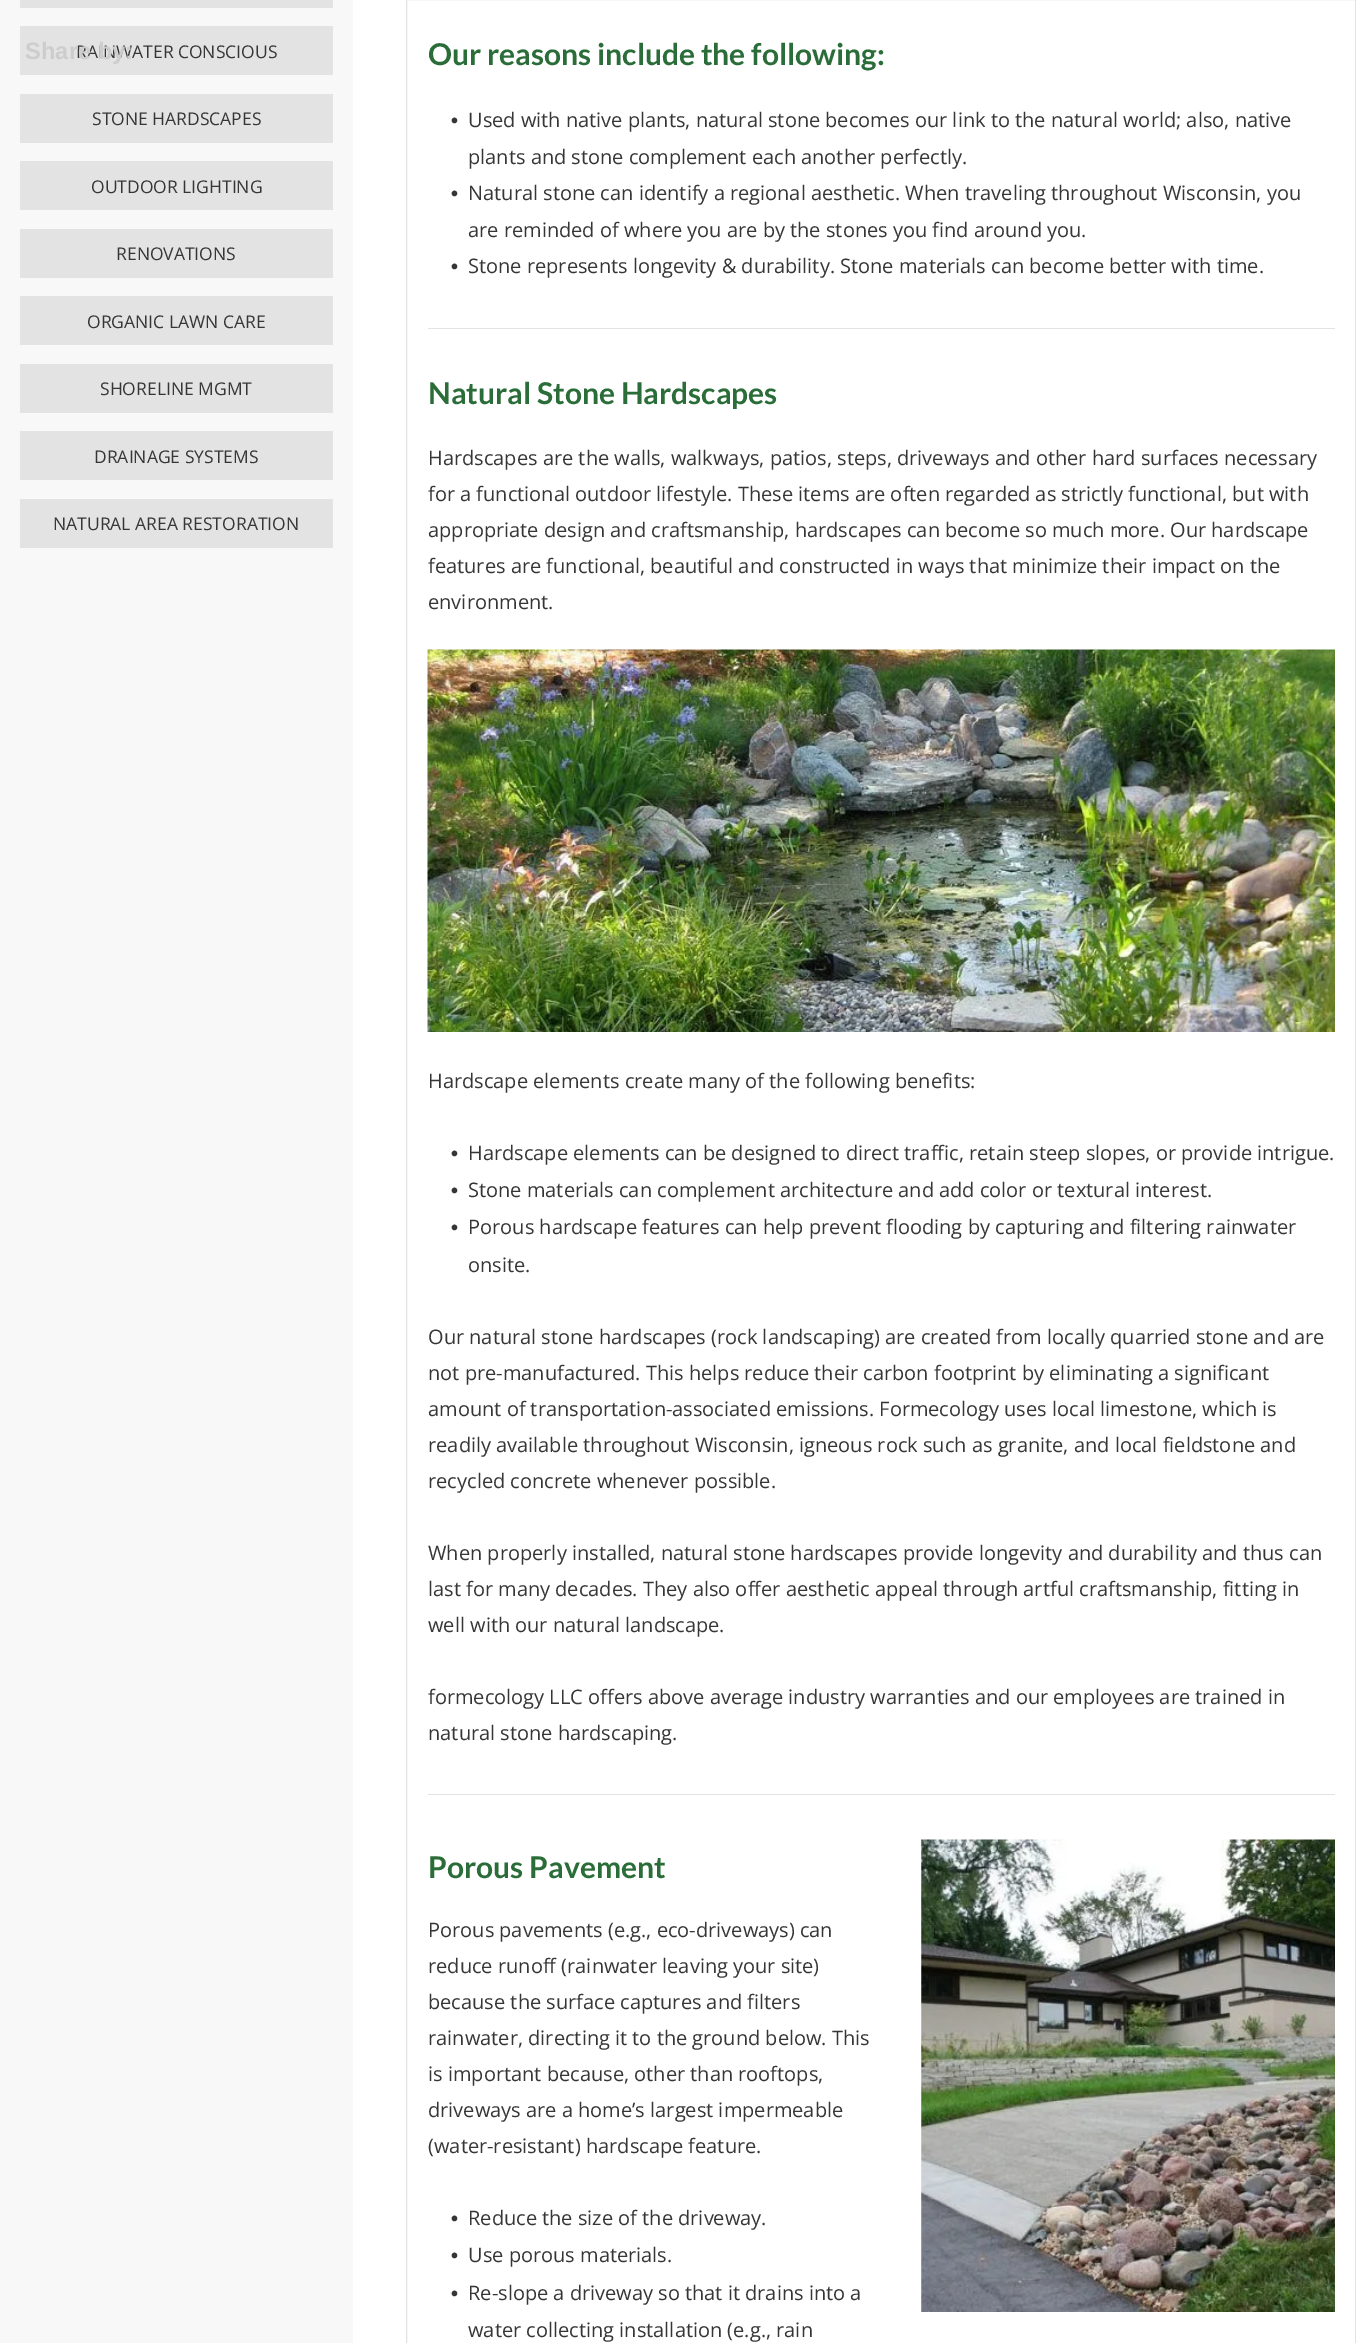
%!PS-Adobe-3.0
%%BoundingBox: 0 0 1356 2343
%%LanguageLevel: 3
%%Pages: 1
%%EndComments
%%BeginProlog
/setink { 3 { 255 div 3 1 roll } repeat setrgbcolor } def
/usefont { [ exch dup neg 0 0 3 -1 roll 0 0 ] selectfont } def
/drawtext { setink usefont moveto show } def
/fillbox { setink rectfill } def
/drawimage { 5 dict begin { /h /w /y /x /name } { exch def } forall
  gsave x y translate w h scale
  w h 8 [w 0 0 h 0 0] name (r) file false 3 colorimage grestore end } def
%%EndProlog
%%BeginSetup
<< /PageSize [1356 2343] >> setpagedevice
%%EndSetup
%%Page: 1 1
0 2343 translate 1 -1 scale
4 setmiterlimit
0 0 1356 2343 255 255 255 fillbox
0 0 353 2343 248 248 248 fillbox
20 26 313 49 227 227 227 fillbox
(RAINWATER CONSCIOUS) 76 58 /OpenSans-Regular 17.5 54 54 54 drawtext
(Share by:) 25 59 /LiberationSans-Bold 23.75 205 205 205 drawtext
20 0 313 8 227 227 227 fillbox
20 94 313 49 227 227 227 fillbox
(STONE HARDSCAPES) 92 125 /OpenSans-Regular 17.5 54 54 54 drawtext
20 161 313 49 227 227 227 fillbox
(OUTDOOR LIGHTING) 91 193 /OpenSans-Regular 17.5 54 54 54 drawtext
20 229 313 49 227 227 227 fillbox
(RENOVATIONS) 116 260 /OpenSans-Regular 17.5 54 54 54 drawtext
20 296 313 49 227 227 227 fillbox
(ORGANIC LAWN CARE) 87 328 /OpenSans-Regular 17.5 54 54 54 drawtext
20 364 313 49 227 227 227 fillbox
(SHORELINE MGMT) 100 395 /OpenSans-Regular 17.5 54 54 54 drawtext
20 431 313 49 227 227 227 fillbox
(DRAINAGE SYSTEMS) 94 463 /OpenSans-Regular 17.5 54 54 54 drawtext
20 499 313 49 227 227 227 fillbox
(NATURAL AREA RESTORATION) 53 530 /OpenSans-Regular 17.5 54 54 54 drawtext
227 227 227 setink
406.5 -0.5 949 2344 rectstroke
(Our reasons include the following:) 428 65 /Lato-Bold 30 42 109 56 drawtext
(•) 451 127 /LiberationSans-Bold 20 54 54 54 drawtext
(Used with native plants, natural stone becomes our link to the natural world; also, native) 468 127 /OpenSans-Regular 20 54 54 54 drawtext
(plants and stone complement each another perfectly.) 468 164 /OpenSans-Regular 20 54 54 54 drawtext
(•) 451 200 /LiberationSans-Bold 20 54 54 54 drawtext
(Natural stone can identify a regional aesthetic. When traveling throughout Wisconsin, you) 468 200 /OpenSans-Regular 20 54 54 54 drawtext
(are reminded of where you are by the stones you find around you.) 468 237 /OpenSans-Regular 20 54 54 54 drawtext
(•) 451 273 /LiberationSans-Bold 20 54 54 54 drawtext
(Stone represents longevity & durability. Stone materials can become better with time.) 468 273 /OpenSans-Regular 20 54 54 54 drawtext
428 328 907 1 227 227 227 fillbox
(Natural Stone Hardscapes) 428 404 /Lato-Bold 30 42 109 56 drawtext
(Hardscapes are the walls, walkways, patios, steps, driveways and other hard surfaces necessary) 428 465 /OpenSans-Regular 20 54 54 54 drawtext
(for a functional outdoor lifestyle. These items are often regarded as strictly functional, but with) 428 501 /OpenSans-Regular 20 54 54 54 drawtext
(appropriate design and craftsmanship, hardscapes can become so much more. Our hardscape) 428 537 /OpenSans-Regular 20 54 54 54 drawtext
(features are functional, beautiful and constructed in ways that minimize their impact on the) 428 573 /OpenSans-Regular 20 54 54 54 drawtext
(environment.) 428 609 /OpenSans-Regular 20 54 54 54 drawtext
(assets/img1.rgb) 427 649 908 383 drawimage
(Hardscape elements create many of the following benefits:) 428 1088 /OpenSans-Regular 20 54 54 54 drawtext
(•) 451 1160 /LiberationSans-Bold 20 54 54 54 drawtext
(Hardscape elements can be designed to direct traffic, retain steep slopes, or provide intrigue.) 468 1160 /OpenSans-Regular 20 54 54 54 drawtext
(•) 451 1197 /LiberationSans-Bold 20 54 54 54 drawtext
(Stone materials can complement architecture and add color or textural interest.) 468 1197 /OpenSans-Regular 20 54 54 54 drawtext
(•) 451 1234 /LiberationSans-Bold 20 54 54 54 drawtext
(Porous hardscape features can help prevent flooding by capturing and filtering rainwater) 468 1234 /OpenSans-Regular 20 54 54 54 drawtext
(onsite.) 468 1272 /OpenSans-Regular 20 54 54 54 drawtext
(Our natural stone hardscapes \(rock landscaping\) are created from locally quarried stone and are) 428 1344 /OpenSans-Regular 20 54 54 54 drawtext
(not pre-manufactured. This helps reduce their carbon footprint by eliminating a significant) 428 1380 /OpenSans-Regular 20 54 54 54 drawtext
(amount of transportation-associated emissions. Formecology uses local limestone, which is) 428 1416 /OpenSans-Regular 20 54 54 54 drawtext
(readily available throughout Wisconsin, igneous rock such as granite, and local fieldstone and) 428 1452 /OpenSans-Regular 20 54 54 54 drawtext
(recycled concrete whenever possible.) 428 1488 /OpenSans-Regular 20 54 54 54 drawtext
(When properly installed, natural stone hardscapes provide longevity and durability and thus can) 428 1560 /OpenSans-Regular 20 54 54 54 drawtext
(last for many decades. They also offer aesthetic appeal through artful craftsmanship, fitting in) 428 1596 /OpenSans-Regular 20 54 54 54 drawtext
(well with our natural landscape.) 428 1632 /OpenSans-Regular 20 54 54 54 drawtext
(formecology LLC offers above average industry warranties and our employees are trained in) 428 1704 /OpenSans-Regular 20 54 54 54 drawtext
(natural stone hardscaping.) 428 1740 /OpenSans-Regular 20 54 54 54 drawtext
428 1794 907 1 227 227 227 fillbox
(Porous Pavement) 428 1878 /Lato-Bold 30 42 109 56 drawtext
(Porous pavements \(e.g., eco-driveways\) can) 428 1937 /OpenSans-Regular 20 54 54 54 drawtext
(reduce runoff \(rainwater leaving your site\)) 428 1973 /OpenSans-Regular 20 54 54 54 drawtext
(because the surface captures and filters) 428 2009 /OpenSans-Regular 20 54 54 54 drawtext
(rainwater, directing it to the ground below. This) 428 2045 /OpenSans-Regular 20 54 54 54 drawtext
(is important because, other than rooftops,) 428 2081 /OpenSans-Regular 20 54 54 54 drawtext
(driveways are a home’s largest impermeable) 428 2117 /OpenSans-Regular 20 54 54 54 drawtext
(\(water-resistant\) hardscape feature.) 428 2153 /OpenSans-Regular 20 54 54 54 drawtext
(•) 451 2225 /LiberationSans-Bold 20 54 54 54 drawtext
(Reduce the size of the driveway.) 468 2225 /OpenSans-Regular 20 54 54 54 drawtext
(•) 451 2262 /LiberationSans-Bold 20 54 54 54 drawtext
(Use porous materials.) 468 2262 /OpenSans-Regular 20 54 54 54 drawtext
(•) 451 2300 /LiberationSans-Bold 20 54 54 54 drawtext
(Re-slope a driveway so that it drains into a) 468 2300 /OpenSans-Regular 20 54 54 54 drawtext
(water collecting installation \(e.g., rain) 468 2337 /OpenSans-Regular 20 54 54 54 drawtext
(assets/img2.rgb) 921 1839 414 473 drawimage
showpage
%%EOF
